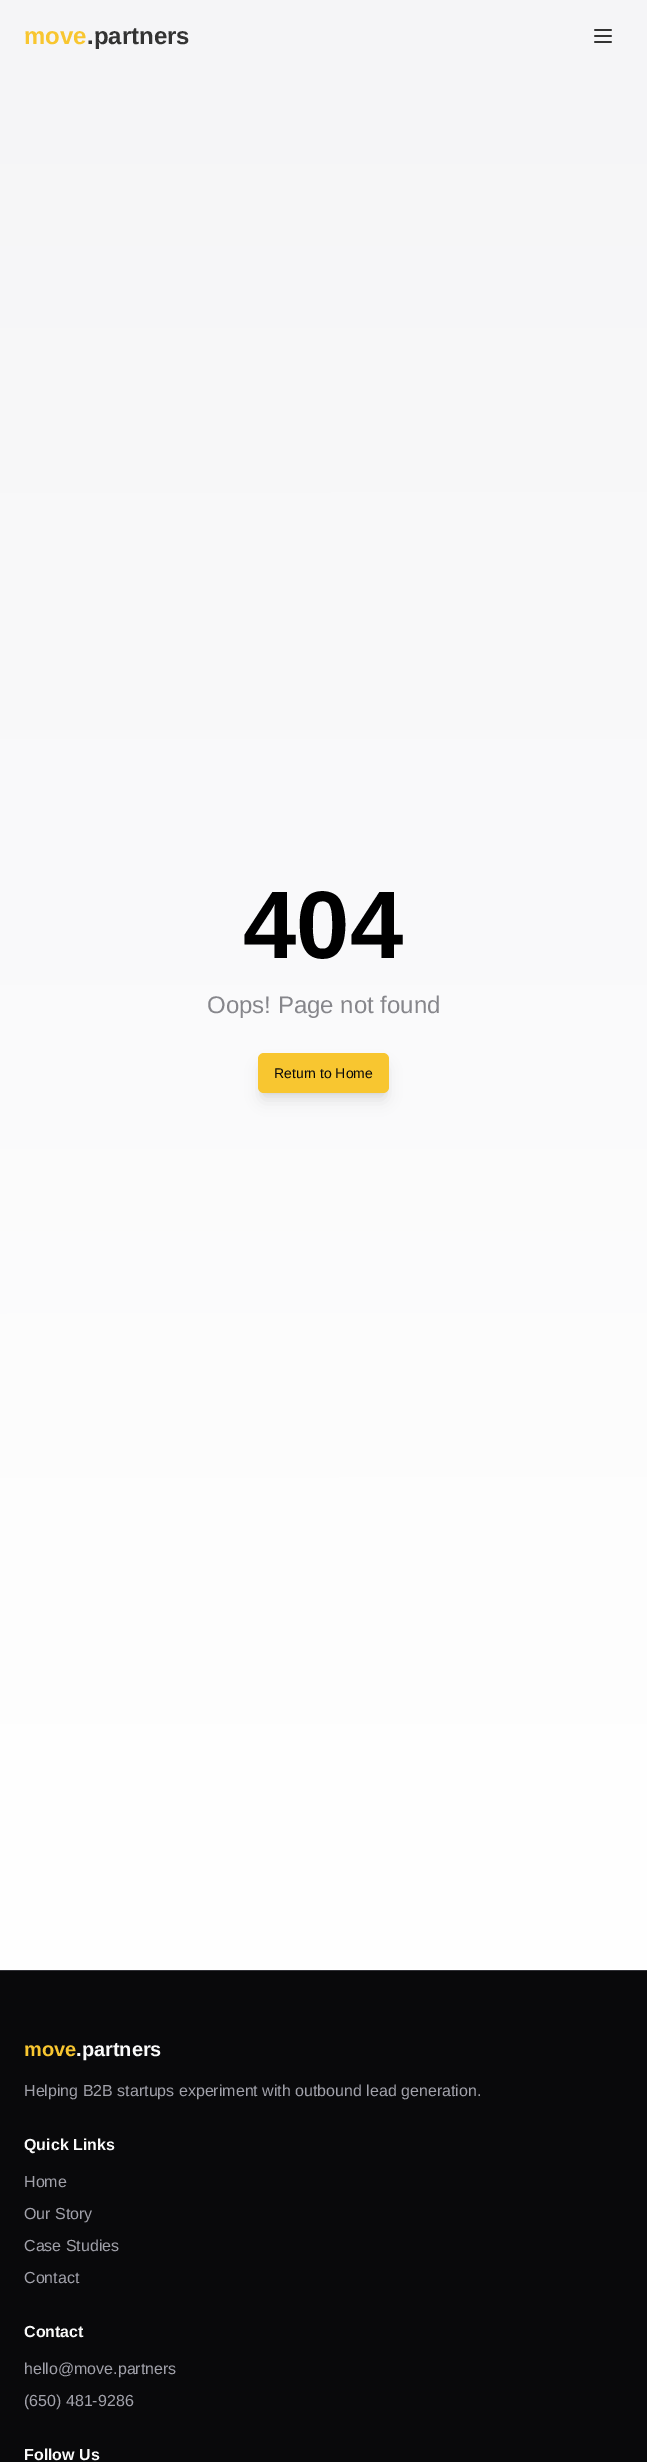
%!PS-Adobe-3.0
%%BoundingBox: 0 0 647 2462
%%LanguageLevel: 3
%%Pages: 1
%%EndComments
%%BeginProlog
/setink { 3 { 255 div 3 1 roll } repeat setrgbcolor } def
/usefont { [ exch dup neg 0 0 3 -1 roll 0 0 ] selectfont } def
/drawtext { setink usefont moveto show } def
/fillbox { setink rectfill } def
/setalpha { dup .setfillconstantalpha .setstrokeconstantalpha } def
/rrect { 5 dict begin { /r /h /w /y /x } { exch def } forall
  x r add y moveto x w add y 2 copy h add r arct x w add y h add x 1 index r arct
  x y h add x y r arct x y 2 copy exch w add exch r arct closepath end } def
/softshadow { 12 dict begin { /a /b /q /h /w /y /x } { exch def } forall gsave /was 0 def
  9 -2 -9 { dup b mul 4 div /e exch def 1 sub .425 mul 2.718 exch exp 1 add a .99 .min exch div /now exch def
    1 1 now sub 1 was sub div sub setalpha /was now def
    w h .min e 2 mul add 0 gt { x e sub y e sub w e 2 mul add h e 2 mul add
      q e add b .6 mul add w h .min 2 div e add .min 0 .max rrect fill } if } for grestore end } def
/drawimage { 5 dict begin { /h /w /y /x /name } { exch def } forall
  gsave x y translate w h scale
  w h 8 [w 0 0 h 0 0] name (r) file false 3 colorimage grestore end } def
%%EndProlog
%%BeginSetup
<< /PageSize [647 2462] /PageUsesTransparency true >> setpagedevice
%%EndSetup
%%Page: 1 1
0 .pushpdf14devicefilter
0 2462 translate 1 -1 scale
4 setmiterlimit
0 0 647 2462 9 9 11 fillbox
gsave 0 0 moveto 647 0 lineto 647 1970 lineto 0 1970 lineto closepath clip newpath
<< /ShadingType 2 /ColorSpace /DeviceRGB /Coords [323 0 324 1970] /Extend [true true] /Function << /FunctionType 2 /Domain [0 1] /C0 [0.961 0.961 0.969] /C1 [1 1 1] /N 1 >> >> shfill grestore
(move) 24 44 /LiberationSans-Bold 24 248 198 48 drawtext
(.partners) 87 44 /LiberationSans-Bold 24 51 51 51 drawtext
(assets/img1.rgb) 594 29 18 14 drawimage
(404) 243 958 /LiberationSans-Bold 96 0 0 0 drawtext
(Oops! Page not found) 207 1013 /LiberationSans-Regular 24 134 134 139 drawtext
0 0 0 setink
262 1061 123 32 2 3 0.1 softshadow
261 1066 125 34 3 7.5 0.1 softshadow
248 198 48 setink
258 1053 131 40 6 rrect fill
(Return to Home) 274 1078 /LiberationSans-Regular 14 9 9 11 drawtext
0 1970 647 1 48 48 54 fillbox
(move) 24 2056 /LiberationSans-Bold 20 248 198 48 drawtext
(.partners) 76 2056 /LiberationSans-Bold 20 250 250 250 drawtext
(Helping B2B startups experiment with outbound lead generation.) 24 2096 /LiberationSans-Regular 16 161 161 170 drawtext
(Quick Links) 24 2150 /LiberationSans-Bold 16 250 250 250 drawtext
(Home) 24 2187 /LiberationSans-Regular 16 161 161 170 drawtext
(Our Story) 24 2219 /LiberationSans-Regular 16 161 161 170 drawtext
(Case Studies) 24 2251 /LiberationSans-Regular 16 161 161 170 drawtext
(Contact) 24 2283 /LiberationSans-Regular 16 161 161 170 drawtext
(Contact) 24 2337 /LiberationSans-Bold 16 250 250 250 drawtext
(hello@move.partners) 24 2374 /LiberationSans-Regular 16 161 161 170 drawtext
(\(650\) 481-9286) 24 2406 /LiberationSans-Regular 16 161 161 170 drawtext
(Follow Us) 24 2460 /LiberationSans-Bold 16 250 250 250 drawtext
.poppdf14devicefilter showpage
%%EOF
